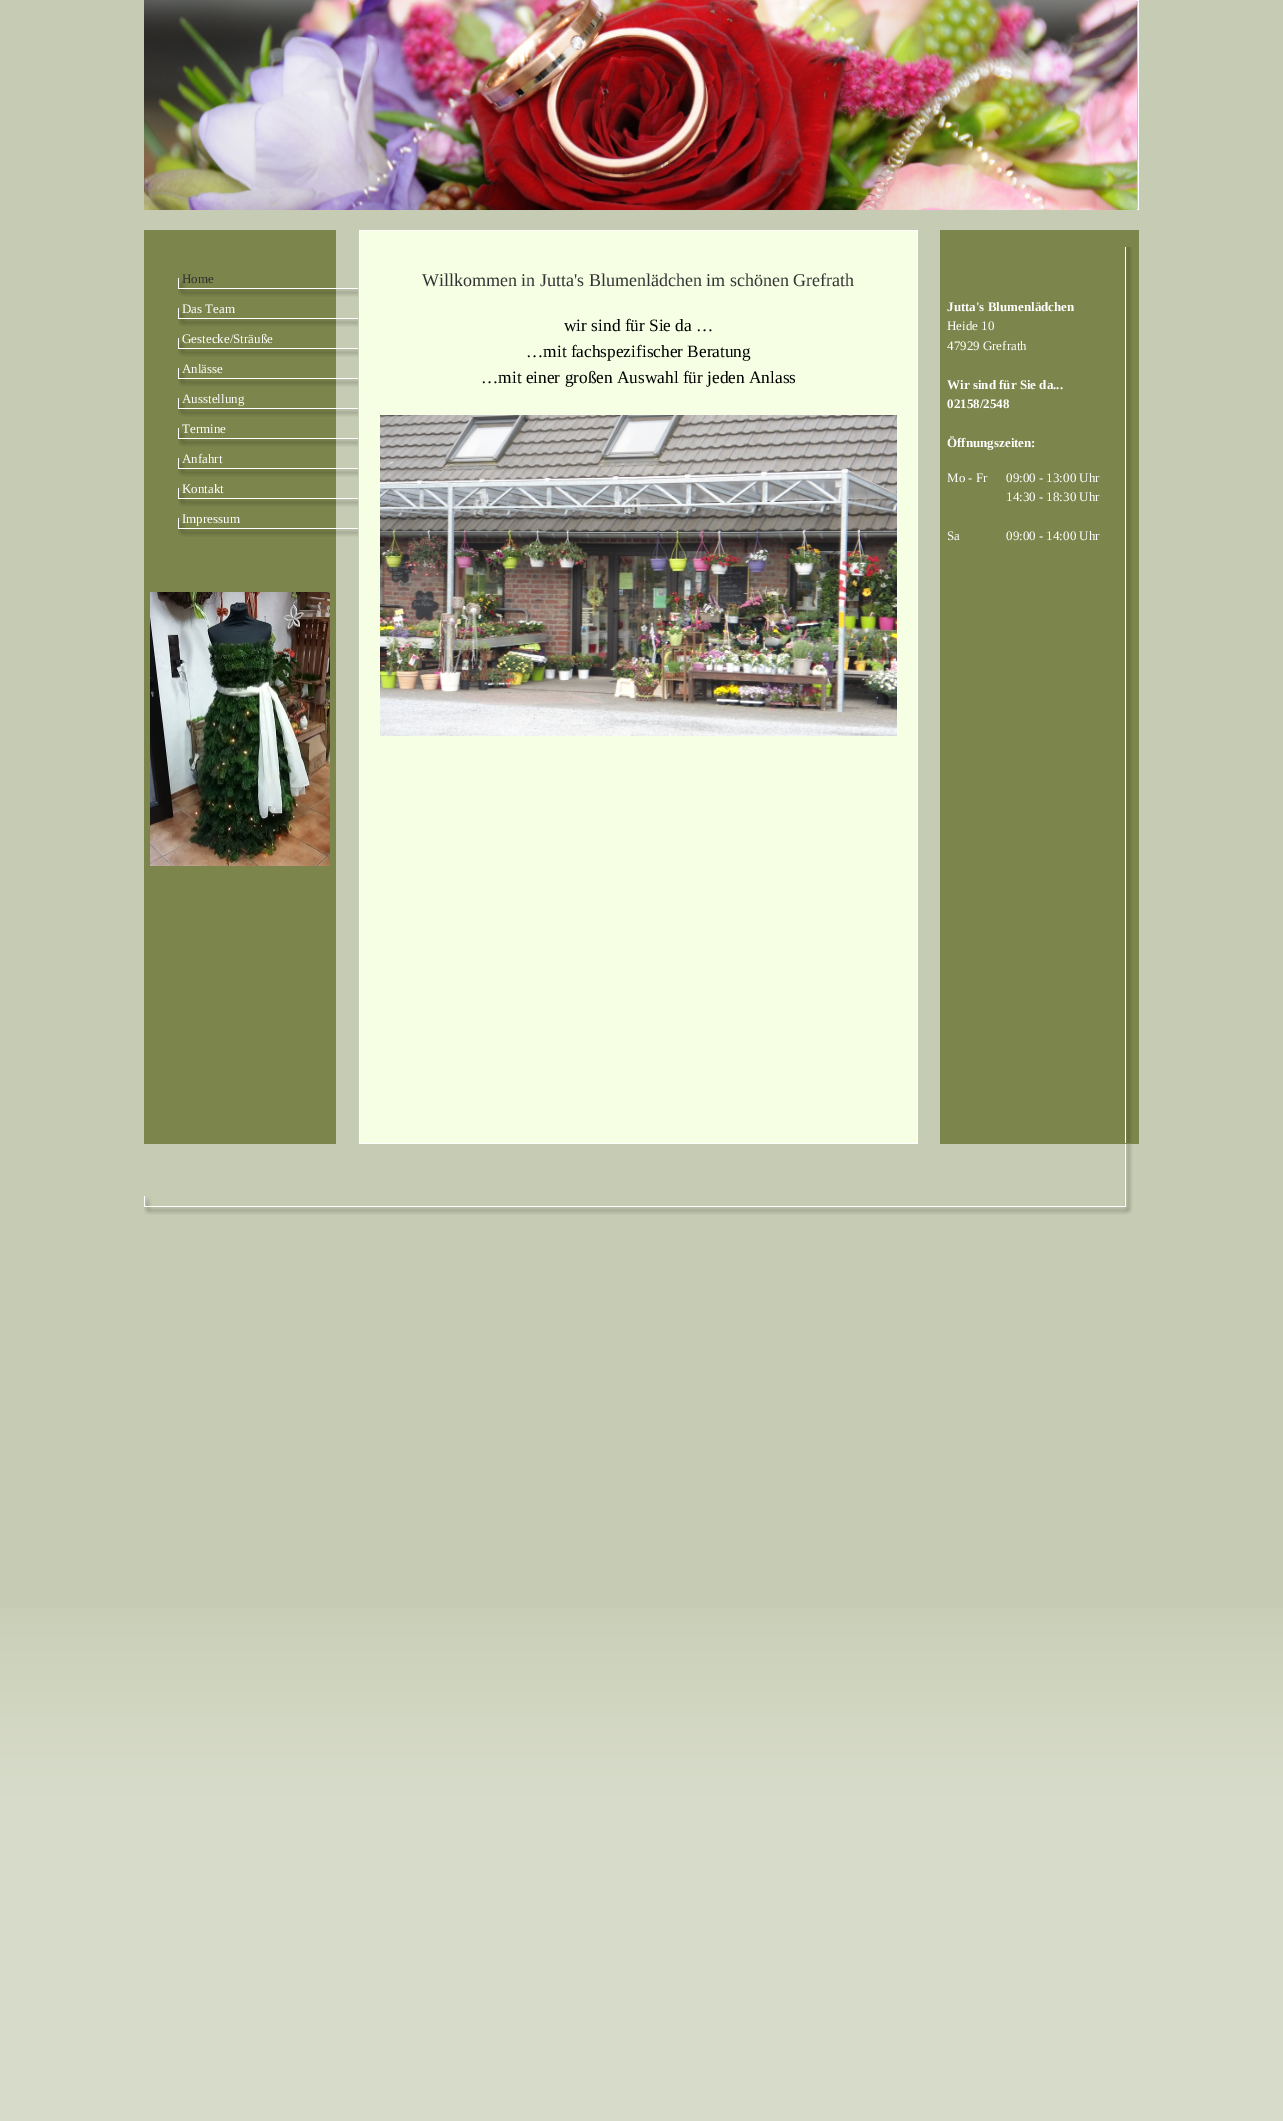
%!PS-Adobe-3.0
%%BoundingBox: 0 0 1283 2121
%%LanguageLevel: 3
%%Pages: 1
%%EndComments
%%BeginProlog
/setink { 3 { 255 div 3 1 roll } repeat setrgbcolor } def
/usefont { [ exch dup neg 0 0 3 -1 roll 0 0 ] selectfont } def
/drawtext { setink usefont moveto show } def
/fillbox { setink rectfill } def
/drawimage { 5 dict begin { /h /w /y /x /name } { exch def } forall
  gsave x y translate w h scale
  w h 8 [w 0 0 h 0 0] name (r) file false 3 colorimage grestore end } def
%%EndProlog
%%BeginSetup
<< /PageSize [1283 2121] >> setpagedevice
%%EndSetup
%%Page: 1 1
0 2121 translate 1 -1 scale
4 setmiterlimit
0 0 1283 2121 198 204 179 fillbox
(assets/img1.rgb) 0 1608 1283 513 drawimage
(assets/img2.rgb) 144 0 993 210 drawimage
(assets/img3.rgb) 1137 0 2 210 drawimage
144 230 192 914 124 133 76 fillbox
360 231 557 912 246 254 227 fillbox
359 230 559 1 255 255 255 fillbox
917 230 1 914 255 255 255 fillbox
359 230 1 897 255 255 255 fillbox
940 230 199 914 124 133 76 fillbox
(assets/img4.rgb) 178 278 180 19 drawimage
(Home) 182 283 /LiberationSerif-Regular 13 51 51 51 drawtext
(assets/img4.rgb) 178 308 180 19 drawimage
(Das Team) 182 313 /LiberationSerif-Regular 13 255 255 255 drawtext
(assets/img4.rgb) 178 338 180 19 drawimage
(Gestecke/Sträuße) 182 343 /LiberationSerif-Regular 13 255 255 255 drawtext
(assets/img4.rgb) 178 368 180 19 drawimage
(Anlässe) 182 373 /LiberationSerif-Regular 13 255 255 255 drawtext
(assets/img4.rgb) 178 398 180 19 drawimage
(Ausstellung) 182 403 /LiberationSerif-Regular 13 255 255 255 drawtext
(assets/img4.rgb) 178 428 180 19 drawimage
(Termine) 182 433 /LiberationSerif-Regular 13 255 255 255 drawtext
(assets/img4.rgb) 178 458 180 19 drawimage
(Anfahrt) 182 463 /LiberationSerif-Regular 13 255 255 255 drawtext
(assets/img4.rgb) 178 488 180 19 drawimage
(Kontakt) 182 493 /LiberationSerif-Regular 13 255 255 255 drawtext
(assets/img4.rgb) 178 518 180 19 drawimage
(Impressum) 182 523 /LiberationSerif-Regular 13 255 255 255 drawtext
(assets/img5.rgb) 150 592 180 274 drawimage
(Willkommen in Jutta's Blumenlädchen im schönen Grefrath) 422 286 /LiberationSerif-Regular 18 51 51 51 drawtext
(wir sind für Sie da …) 564 331 /LiberationSerif-Regular 17.3 0 0 0 drawtext
(…mit fachspezifischer Beratung) 526 357 /LiberationSerif-Regular 17.3 0 0 0 drawtext
(…mit einer großen Auswahl für jeden Anlass) 481 383 /LiberationSerif-Regular 17.3 0 0 0 drawtext
(assets/img6.rgb) 380 415 517 321 drawimage
(assets/img7.rgb) 1125 247 7 880 drawimage
(Jutta's Blumenlädchen) 947 311 /LiberationSerif-Bold 13 255 255 255 drawtext
(Heide 10) 947 330 /LiberationSerif-Regular 13 255 255 255 drawtext
(47929 Grefrath) 947 350 /LiberationSerif-Regular 13 255 255 255 drawtext
(Wir sind für Sie da...) 947 389 /LiberationSerif-Bold 13 255 255 255 drawtext
(02158/2548) 947 408 /LiberationSerif-Bold 13 255 255 255 drawtext
(Öffnungszeiten:) 947 447 /LiberationSerif-Bold 13 255 255 255 drawtext
(Mo - Fr) 947 482 /LiberationSerif-Regular 13 255 255 255 drawtext
(Sa) 947 540 /LiberationSerif-Regular 13 255 255 255 drawtext
(09:00 - 13:00 Uhr) 1006 482 /LiberationSerif-Regular 13 255 255 255 drawtext
(14:30 - 18:30 Uhr) 1006 501 /LiberationSerif-Regular 13 255 255 255 drawtext
(09:00 - 14:00 Uhr) 1006 540 /LiberationSerif-Regular 13 255 255 255 drawtext
359 1143 559 1 255 255 255 fillbox
359 1127 1 17 255 255 255 fillbox
(assets/img8.rgb) 1125 1127 7 16 drawimage
(assets/img9.rgb) 1124 1144 9 52 drawimage
(assets/img10.rgb) 144 1196 989 19 drawimage
showpage
%%EOF
